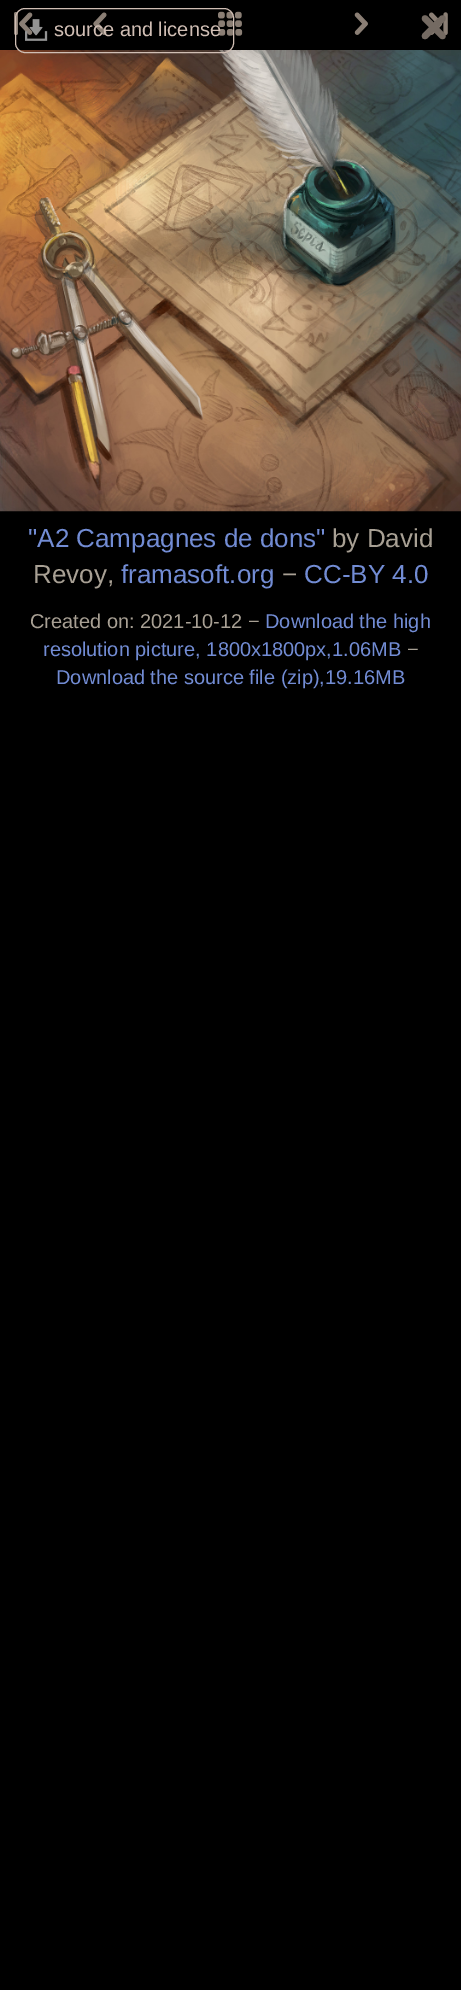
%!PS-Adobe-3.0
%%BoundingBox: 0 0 461 1990
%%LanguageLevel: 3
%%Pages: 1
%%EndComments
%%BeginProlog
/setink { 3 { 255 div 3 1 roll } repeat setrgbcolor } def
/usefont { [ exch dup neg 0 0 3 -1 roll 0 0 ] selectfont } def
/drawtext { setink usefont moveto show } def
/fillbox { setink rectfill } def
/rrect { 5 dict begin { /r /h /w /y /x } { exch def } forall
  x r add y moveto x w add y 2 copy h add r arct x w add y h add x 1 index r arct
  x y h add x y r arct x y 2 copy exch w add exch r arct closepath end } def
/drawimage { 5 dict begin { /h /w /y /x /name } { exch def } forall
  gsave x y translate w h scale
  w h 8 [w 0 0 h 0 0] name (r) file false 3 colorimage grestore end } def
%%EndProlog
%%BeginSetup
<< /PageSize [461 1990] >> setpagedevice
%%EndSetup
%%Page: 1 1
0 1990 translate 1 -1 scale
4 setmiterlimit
0 0 461 1990 0 0 0 fillbox
(assets/img1.rgb) 14 12 19 23 drawimage
(assets/img2.rgb) 93 12 14 23 drawimage
(assets/img3.rgb) 218 11 25 25 drawimage
(assets/img4.rgb) 354 12 14 23 drawimage
(assets/img5.rgb) 429 12 19 24 drawimage
(assets/img6.rgb) 25 19 23 22 drawimage
(assets/img7.rgb) 0 50 461 462 drawimage
208 190 180 setink
15.5 8.5 218 44 9.5 rrect stroke
(source and license) 54 36 /LiberationSans-Regular 20 208 190 180 drawtext
116 106 98 setink
6.5 setlinewidth
1 setlinecap
425 18.5 moveto 442.5 36 lineto 442.5 18.5 moveto 425 36 lineto stroke
("A2 Campagnes de dons") 28 547 /LiberationSans-Regular 26 114 140 212 drawtext
(by David) 332 547 /LiberationSans-Regular 26 168 160 148 drawtext
(Revoy,) 33 583 /LiberationSans-Regular 26 168 160 148 drawtext
(framasoft.org) 121 583 /LiberationSans-Regular 26 114 140 212 drawtext
(−) 282 583 /LiberationSans-Regular 26 168 160 148 drawtext
(CC-BY 4.0) 304 583 /LiberationSans-Regular 26 114 140 212 drawtext
(Created on: 2021-10-12 −) 30 628 /LiberationSans-Regular 20 168 160 148 drawtext
(Download the high) 265 628 /LiberationSans-Regular 20 114 140 212 drawtext
(resolution picture, 1800x1800px,1.06MB) 43 656 /LiberationSans-Regular 20 114 140 212 drawtext
(−) 407 656 /LiberationSans-Regular 20 168 160 148 drawtext
(Download the source file \(zip\),19.16MB) 56 684 /LiberationSans-Regular 20 114 140 212 drawtext
showpage
%%EOF
